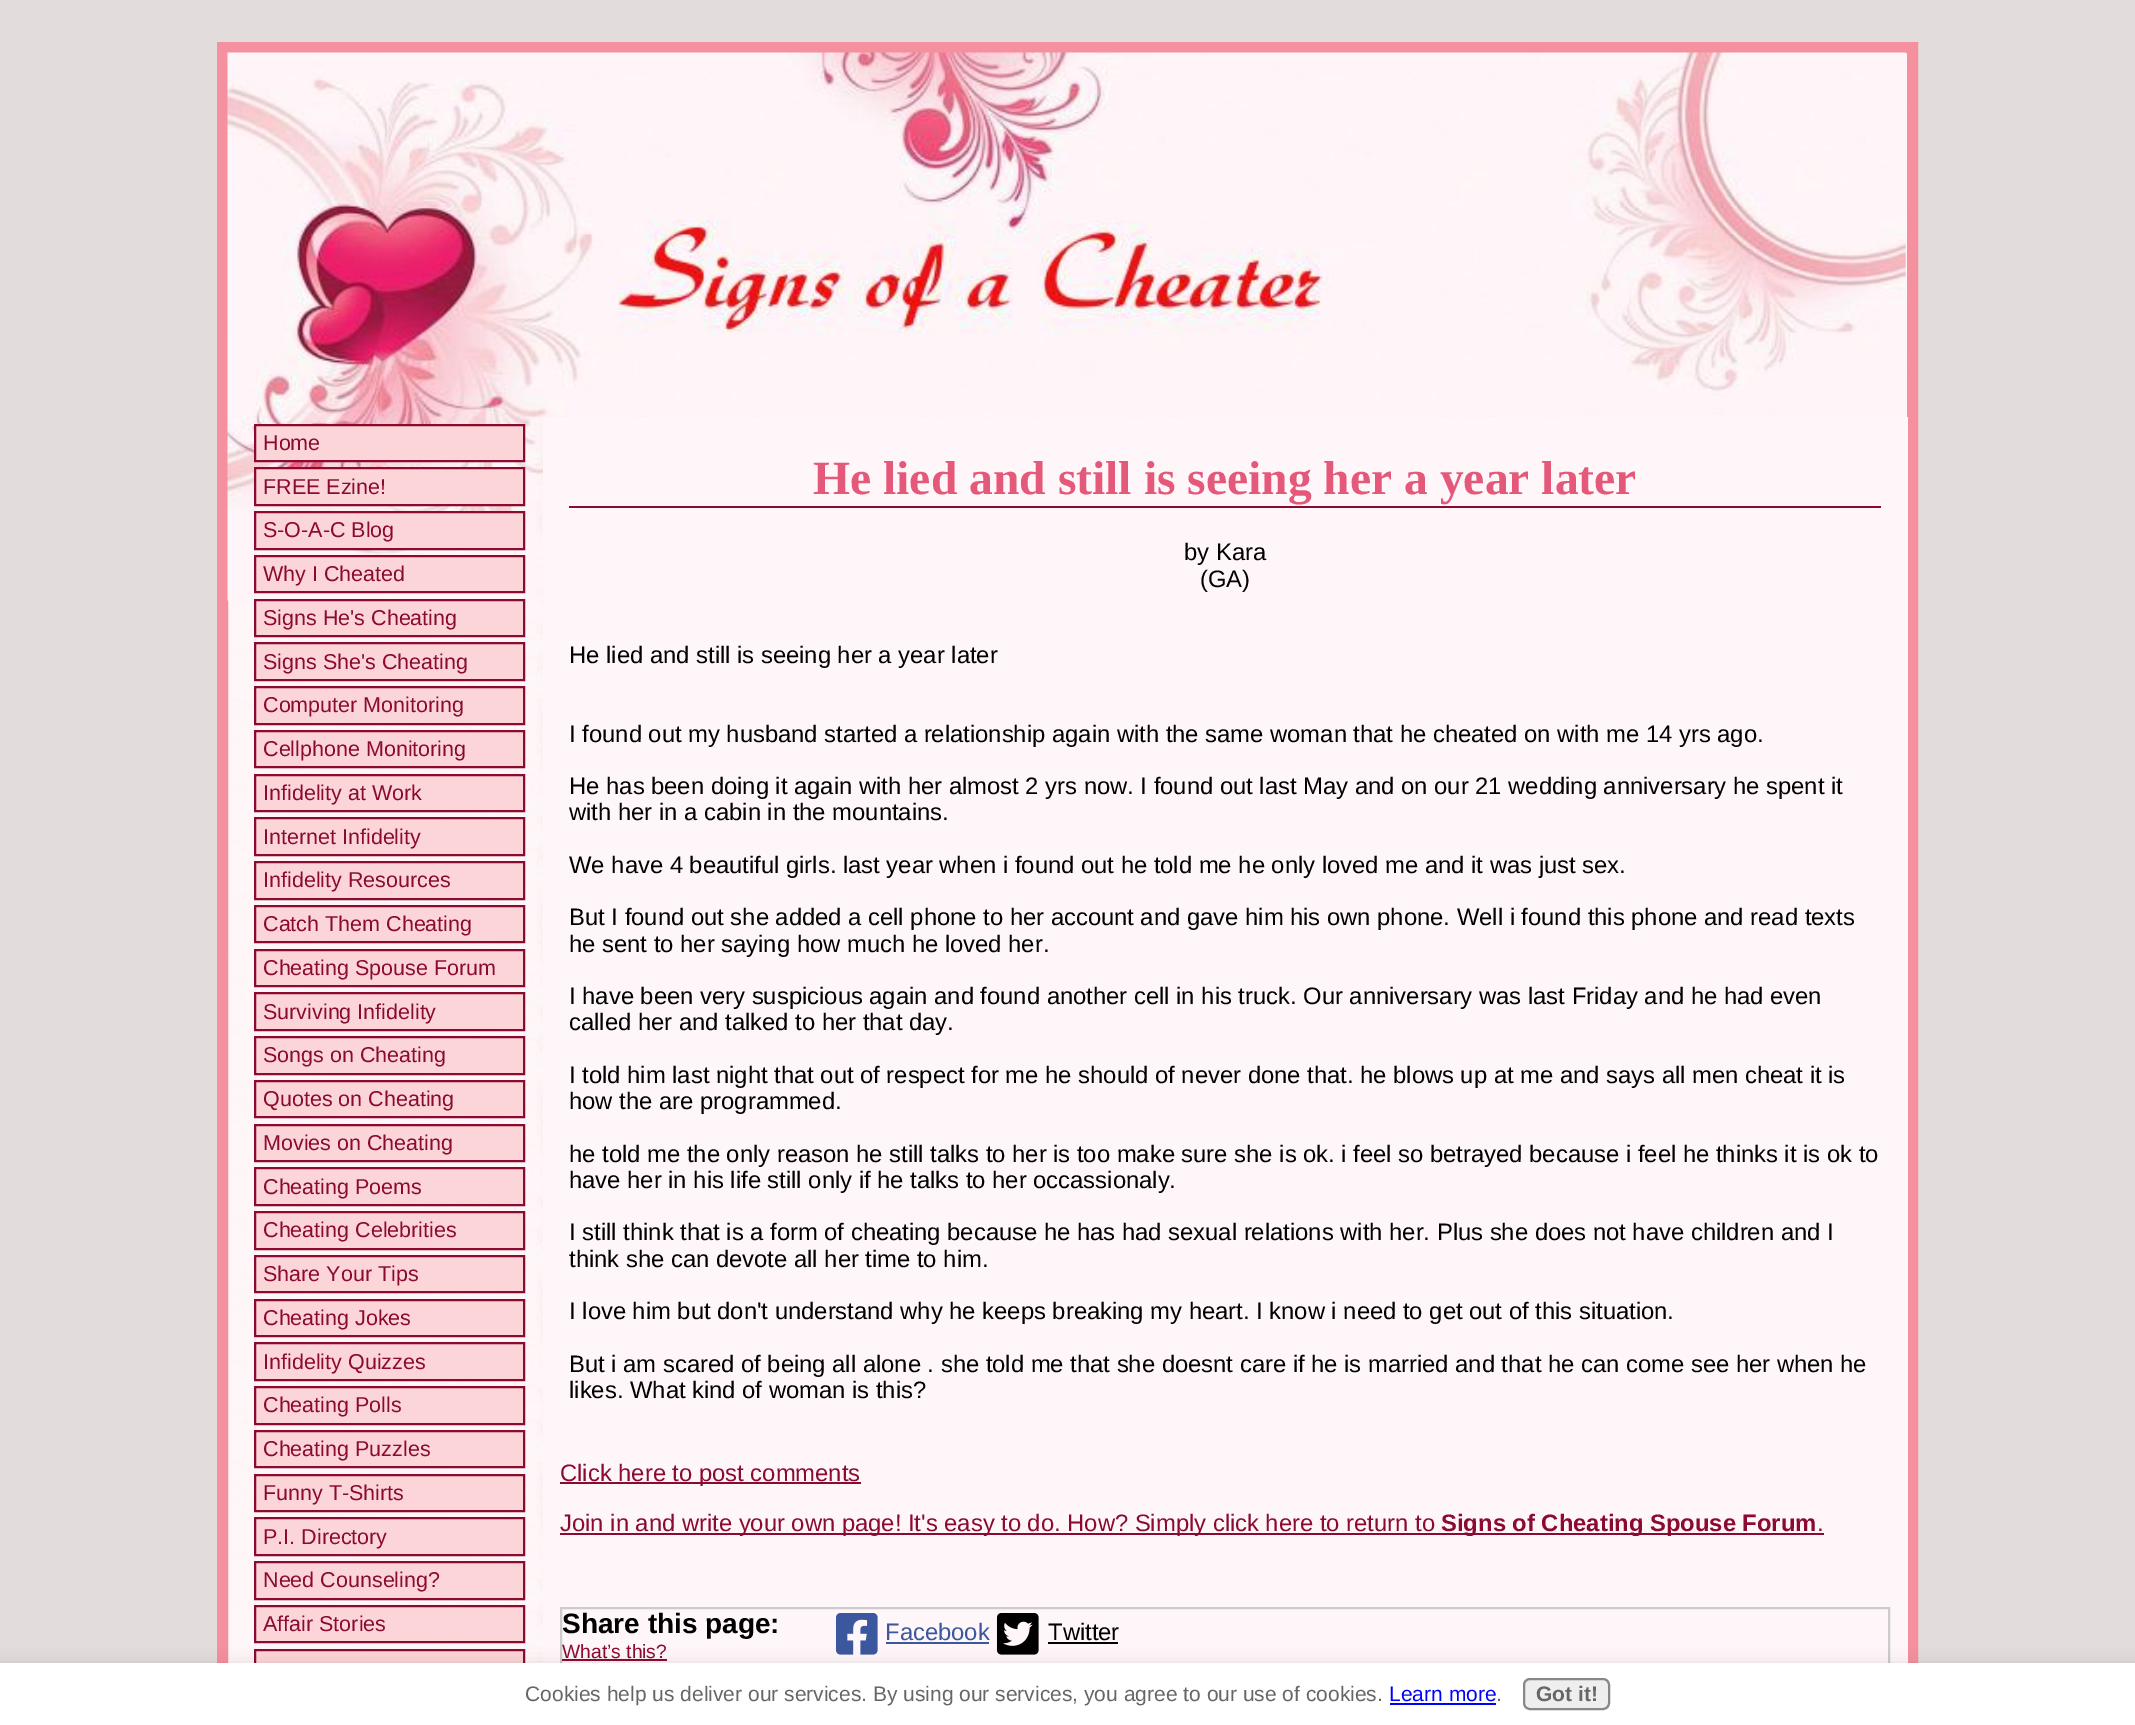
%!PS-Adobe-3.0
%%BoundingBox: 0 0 2135 1725
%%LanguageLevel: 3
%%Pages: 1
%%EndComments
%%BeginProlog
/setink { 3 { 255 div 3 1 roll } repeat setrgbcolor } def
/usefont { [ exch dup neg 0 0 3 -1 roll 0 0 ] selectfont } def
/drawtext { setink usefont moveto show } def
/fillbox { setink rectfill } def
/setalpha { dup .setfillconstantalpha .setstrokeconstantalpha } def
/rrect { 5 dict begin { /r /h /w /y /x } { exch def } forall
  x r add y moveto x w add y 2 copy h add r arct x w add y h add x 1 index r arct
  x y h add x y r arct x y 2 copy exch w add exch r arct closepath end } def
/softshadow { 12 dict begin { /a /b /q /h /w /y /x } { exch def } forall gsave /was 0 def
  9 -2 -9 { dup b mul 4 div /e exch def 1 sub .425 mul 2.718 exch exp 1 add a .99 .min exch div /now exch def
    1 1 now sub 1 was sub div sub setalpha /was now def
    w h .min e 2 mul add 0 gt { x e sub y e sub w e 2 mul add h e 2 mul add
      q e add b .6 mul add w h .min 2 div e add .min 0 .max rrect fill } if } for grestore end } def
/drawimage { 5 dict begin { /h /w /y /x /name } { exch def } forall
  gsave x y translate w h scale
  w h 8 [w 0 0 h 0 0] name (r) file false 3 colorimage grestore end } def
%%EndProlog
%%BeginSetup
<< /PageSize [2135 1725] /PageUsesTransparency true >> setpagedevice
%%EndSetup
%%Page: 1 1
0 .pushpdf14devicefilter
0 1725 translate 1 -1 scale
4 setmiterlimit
0 0 2135 1725 226 220 220 fillbox
(assets/img1.rgb) 228 53 1679 1610 drawimage
245 144 158 setink
11 setlinewidth
222.5 47.5 1690 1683 rectstroke
(assets/img2.rgb) 227 52 1679 549 drawimage
252 213 216 setink
255 425 moveto 524 425 lineto 524 461 lineto 255 461 lineto closepath gsave fill grestore
139 10 48 setink
2 setlinewidth
stroke
(Home) 263 450 /LiberationSans-Regular 21.5 139 10 48 drawtext
252 213 216 setink
255 468 moveto 524 468 lineto 524 505 lineto 255 505 lineto closepath gsave fill grestore
139 10 48 setink
stroke
(FREE Ezine!) 263 494 /LiberationSans-Regular 21.5 139 10 48 drawtext
252 213 216 setink
255 512 moveto 524 512 lineto 524 549 lineto 255 549 lineto closepath gsave fill grestore
139 10 48 setink
stroke
(S-O-A-C Blog) 263 537 /LiberationSans-Regular 21.5 139 10 48 drawtext
252 213 216 setink
255 556 moveto 524 556 lineto 524 592 lineto 255 592 lineto closepath gsave fill grestore
139 10 48 setink
stroke
(Why I Cheated) 263 581 /LiberationSans-Regular 21.5 139 10 48 drawtext
252 213 216 setink
255 600 moveto 524 600 lineto 524 636 lineto 255 636 lineto closepath gsave fill grestore
139 10 48 setink
stroke
(Signs He's Cheating) 263 625 /LiberationSans-Regular 21.5 139 10 48 drawtext
252 213 216 setink
255 643 moveto 524 643 lineto 524 680 lineto 255 680 lineto closepath gsave fill grestore
139 10 48 setink
stroke
(Signs She's Cheating) 263 669 /LiberationSans-Regular 21.5 139 10 48 drawtext
252 213 216 setink
255 687 moveto 524 687 lineto 524 724 lineto 255 724 lineto closepath gsave fill grestore
139 10 48 setink
stroke
(Computer Monitoring) 263 712 /LiberationSans-Regular 21.5 139 10 48 drawtext
252 213 216 setink
255 731 moveto 524 731 lineto 524 767 lineto 255 767 lineto closepath gsave fill grestore
139 10 48 setink
stroke
(Cellphone Monitoring) 263 756 /LiberationSans-Regular 21.5 139 10 48 drawtext
252 213 216 setink
255 775 moveto 524 775 lineto 524 811 lineto 255 811 lineto closepath gsave fill grestore
139 10 48 setink
stroke
(Infidelity at Work) 263 800 /LiberationSans-Regular 21.5 139 10 48 drawtext
252 213 216 setink
255 818 moveto 524 818 lineto 524 855 lineto 255 855 lineto closepath gsave fill grestore
139 10 48 setink
stroke
(Internet Infidelity) 263 844 /LiberationSans-Regular 21.5 139 10 48 drawtext
252 213 216 setink
255 862 moveto 524 862 lineto 524 899 lineto 255 899 lineto closepath gsave fill grestore
139 10 48 setink
stroke
(Infidelity Resources) 263 887 /LiberationSans-Regular 21.5 139 10 48 drawtext
252 213 216 setink
255 906 moveto 524 906 lineto 524 942 lineto 255 942 lineto closepath gsave fill grestore
139 10 48 setink
stroke
(Catch Them Cheating) 263 931 /LiberationSans-Regular 21.5 139 10 48 drawtext
252 213 216 setink
255 950 moveto 524 950 lineto 524 986 lineto 255 986 lineto closepath gsave fill grestore
139 10 48 setink
stroke
(Cheating Spouse Forum) 263 975 /LiberationSans-Regular 21.5 139 10 48 drawtext
252 213 216 setink
255 993 moveto 524 993 lineto 524 1030 lineto 255 1030 lineto closepath gsave fill grestore
139 10 48 setink
stroke
(Surviving Infidelity) 263 1019 /LiberationSans-Regular 21.5 139 10 48 drawtext
252 213 216 setink
255 1037 moveto 524 1037 lineto 524 1074 lineto 255 1074 lineto closepath gsave fill grestore
139 10 48 setink
stroke
(Songs on Cheating) 263 1062 /LiberationSans-Regular 21.5 139 10 48 drawtext
252 213 216 setink
255 1081 moveto 524 1081 lineto 524 1117 lineto 255 1117 lineto closepath gsave fill grestore
139 10 48 setink
stroke
(Quotes on Cheating) 263 1106 /LiberationSans-Regular 21.5 139 10 48 drawtext
252 213 216 setink
255 1125 moveto 524 1125 lineto 524 1161 lineto 255 1161 lineto closepath gsave fill grestore
139 10 48 setink
stroke
(Movies on Cheating) 263 1150 /LiberationSans-Regular 21.5 139 10 48 drawtext
252 213 216 setink
255 1168 moveto 524 1168 lineto 524 1205 lineto 255 1205 lineto closepath gsave fill grestore
139 10 48 setink
stroke
(Cheating Poems) 263 1194 /LiberationSans-Regular 21.5 139 10 48 drawtext
252 213 216 setink
255 1212 moveto 524 1212 lineto 524 1249 lineto 255 1249 lineto closepath gsave fill grestore
139 10 48 setink
stroke
(Cheating Celebrities) 263 1237 /LiberationSans-Regular 21.5 139 10 48 drawtext
252 213 216 setink
255 1256 moveto 524 1256 lineto 524 1292 lineto 255 1292 lineto closepath gsave fill grestore
139 10 48 setink
stroke
(Share Your Tips) 263 1281 /LiberationSans-Regular 21.5 139 10 48 drawtext
252 213 216 setink
255 1300 moveto 524 1300 lineto 524 1336 lineto 255 1336 lineto closepath gsave fill grestore
139 10 48 setink
stroke
(Cheating Jokes) 263 1325 /LiberationSans-Regular 21.5 139 10 48 drawtext
252 213 216 setink
255 1343 moveto 524 1343 lineto 524 1380 lineto 255 1380 lineto closepath gsave fill grestore
139 10 48 setink
stroke
(Infidelity Quizzes) 263 1369 /LiberationSans-Regular 21.5 139 10 48 drawtext
252 213 216 setink
255 1387 moveto 524 1387 lineto 524 1424 lineto 255 1424 lineto closepath gsave fill grestore
139 10 48 setink
stroke
(Cheating Polls) 263 1412 /LiberationSans-Regular 21.5 139 10 48 drawtext
252 213 216 setink
255 1431 moveto 524 1431 lineto 524 1467 lineto 255 1467 lineto closepath gsave fill grestore
139 10 48 setink
stroke
(Cheating Puzzles) 263 1456 /LiberationSans-Regular 21.5 139 10 48 drawtext
252 213 216 setink
255 1475 moveto 524 1475 lineto 524 1511 lineto 255 1511 lineto closepath gsave fill grestore
139 10 48 setink
stroke
(Funny T-Shirts) 263 1500 /LiberationSans-Regular 21.5 139 10 48 drawtext
252 213 216 setink
255 1518 moveto 524 1518 lineto 524 1555 lineto 255 1555 lineto closepath gsave fill grestore
139 10 48 setink
stroke
(P.I. Directory) 263 1544 /LiberationSans-Regular 21.5 139 10 48 drawtext
252 213 216 setink
255 1562 moveto 524 1562 lineto 524 1599 lineto 255 1599 lineto closepath gsave fill grestore
139 10 48 setink
stroke
(Need Counseling?) 263 1587 /LiberationSans-Regular 21.5 139 10 48 drawtext
252 213 216 setink
255 1606 moveto 524 1606 lineto 524 1642 lineto 255 1642 lineto closepath gsave fill grestore
139 10 48 setink
stroke
(Affair Stories) 263 1631 /LiberationSans-Regular 21.5 139 10 48 drawtext
256 1651 267 12 252 213 216 fillbox
139 10 48 setink
255 1650 269 36 rectstroke
543 417 1365 1246 255 246 249 fillbox
569 506 1312 2 139 10 48 fillbox
(He lied and still is seeing her a year later) 813 494 /LiberationSerif-Bold 47.6 228 89 122 drawtext
(by Kara) 1184 560 /LiberationSans-Regular 23.8 0 0 0 drawtext
(\(GA\)) 1200 587 /LiberationSans-Regular 23.8 0 0 0 drawtext
(He lied and still is seeing her a year later) 569 663 /LiberationSans-Regular 23.8 0 0 0 drawtext
(I found out my husband started a relationship again with the same woman that he cheated on with me 14 yrs ago.) 569 742 /LiberationSans-Regular 23.8 0 0 0 drawtext
(He has been doing it again with her almost 2 yrs now. I found out last May and on our 21 wedding anniversary he spent it) 569 794 /LiberationSans-Regular 23.8 0 0 0 drawtext
(with her in a cabin in the mountains.) 569 820 /LiberationSans-Regular 23.8 0 0 0 drawtext
(We have 4 beautiful girls. last year when i found out he told me he only loved me and it was just sex.) 569 873 /LiberationSans-Regular 23.8 0 0 0 drawtext
(But I found out she added a cell phone to her account and gave him his own phone. Well i found this phone and read texts) 569 925 /LiberationSans-Regular 23.8 0 0 0 drawtext
(he sent to her saying how much he loved her.) 569 952 /LiberationSans-Regular 23.8 0 0 0 drawtext
(I have been very suspicious again and found another cell in his truck. Our anniversary was last Friday and he had even) 569 1004 /LiberationSans-Regular 23.8 0 0 0 drawtext
(called her and talked to her that day.) 569 1030 /LiberationSans-Regular 23.8 0 0 0 drawtext
(I told him last night that out of respect for me he should of never done that. he blows up at me and says all men cheat it is) 569 1083 /LiberationSans-Regular 23.8 0 0 0 drawtext
(how the are programmed.) 569 1109 /LiberationSans-Regular 23.8 0 0 0 drawtext
(he told me the only reason he still talks to her is too make sure she is ok. i feel so betrayed because i feel he thinks it is ok to) 569 1162 /LiberationSans-Regular 23.8 0 0 0 drawtext
(have her in his life still only if he talks to her occassionaly.) 569 1188 /LiberationSans-Regular 23.8 0 0 0 drawtext
(I still think that is a form of cheating because he has had sexual relations with her. Plus she does not have children and I) 569 1240 /LiberationSans-Regular 23.8 0 0 0 drawtext
(think she can devote all her time to him.) 569 1267 /LiberationSans-Regular 23.8 0 0 0 drawtext
(I love him but don't understand why he keeps breaking my heart. I know i need to get out of this situation.) 569 1319 /LiberationSans-Regular 23.8 0 0 0 drawtext
(But i am scared of being all alone . she told me that she doesnt care if he is married and that he can come see her when he) 569 1372 /LiberationSans-Regular 23.8 0 0 0 drawtext
(likes. What kind of woman is this?) 569 1398 /LiberationSans-Regular 23.8 0 0 0 drawtext
560 1482 301 2 139 10 48 fillbox
(Click here to post comments) 560 1481 /LiberationSans-Regular 23.8 139 10 48 drawtext
560 1533 1264 2 139 10 48 fillbox
(Join in and write your own page! It's easy to do. How? Simply click here to return to) 560 1531 /LiberationSans-Regular 23.8 139 10 48 drawtext
(Signs of Cheating Spouse Forum) 1441 1531 /LiberationSans-Bold 23.8 139 10 48 drawtext
(.) 1817 1531 /LiberationSans-Regular 23.8 139 10 48 drawtext
204 204 204 setink
561 1608 1328 111 rectstroke
(Share this page:) 562 1633 /LiberationSans-Bold 28 0 0 0 drawtext
(What’s this?) 562 1658 /LiberationSans-Regular 19.25 139 10 48 drawtext
562 1659 105 2 139 10 48 fillbox
(assets/img3.rgb) 835 1613 43 42 drawimage
(Facebook) 885 1640 /LiberationSans-Regular 23.8 59 87 157 drawtext
886 1642 103 2 59 87 157 fillbox
(assets/img4.rgb) 996 1613 43 42 drawimage
(Twitter) 1048 1640 /LiberationSans-Regular 23.8 0 0 0 drawtext
1048 1642 70 2 0 0 0 fillbox
-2 1668 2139 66 0 9 0.2 softshadow
0 1663 2135 62 255 255 255 fillbox
(Cookies help us deliver our services. By using our services, you agree to our use of cookies.) 525 1701 /LiberationSans-Regular 21 102 102 102 drawtext
(Learn more) 1389 1701 /LiberationSans-Regular 21 0 0 255 drawtext
1390 1703 106 2 0 0 255 fillbox
(.) 1496 1701 /LiberationSans-Regular 21 102 102 102 drawtext
238 238 238 setink
1524 1679 85 30 6 rrect gsave fill grestore
136 136 136 setink
stroke
(Got it!) 1536 1701 /LiberationSans-Bold 21 102 102 102 drawtext
.poppdf14devicefilter showpage
%%EOF
